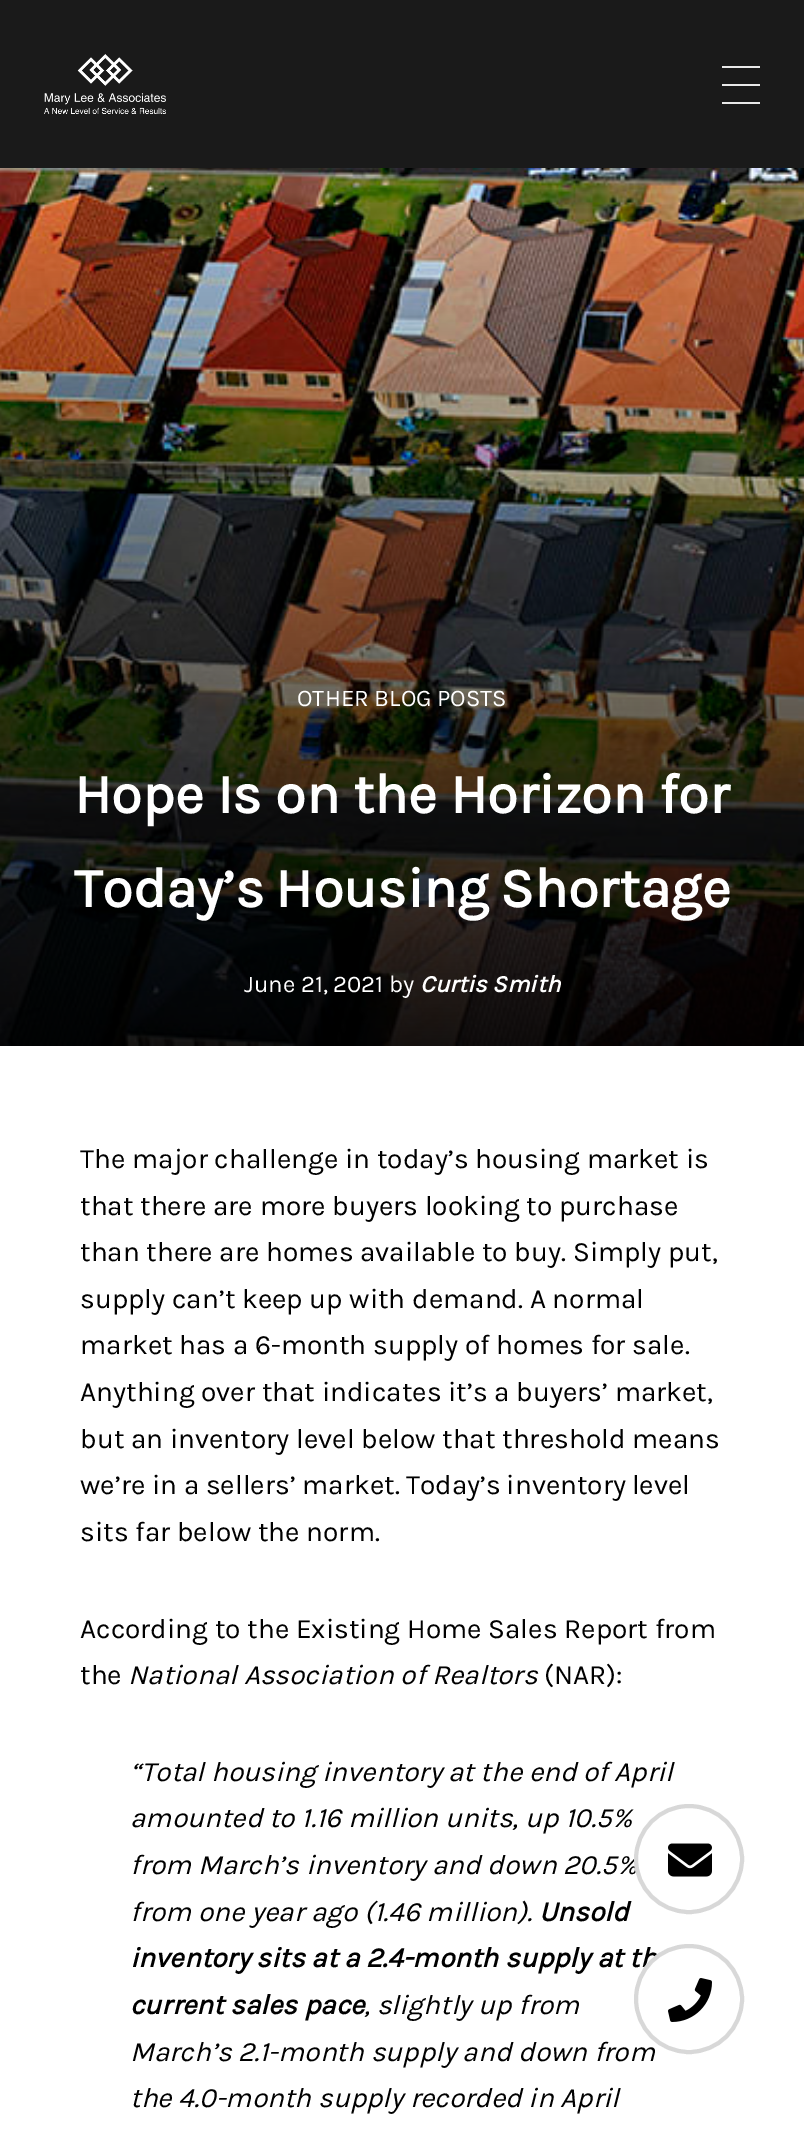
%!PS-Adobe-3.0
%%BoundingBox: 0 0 804 2134
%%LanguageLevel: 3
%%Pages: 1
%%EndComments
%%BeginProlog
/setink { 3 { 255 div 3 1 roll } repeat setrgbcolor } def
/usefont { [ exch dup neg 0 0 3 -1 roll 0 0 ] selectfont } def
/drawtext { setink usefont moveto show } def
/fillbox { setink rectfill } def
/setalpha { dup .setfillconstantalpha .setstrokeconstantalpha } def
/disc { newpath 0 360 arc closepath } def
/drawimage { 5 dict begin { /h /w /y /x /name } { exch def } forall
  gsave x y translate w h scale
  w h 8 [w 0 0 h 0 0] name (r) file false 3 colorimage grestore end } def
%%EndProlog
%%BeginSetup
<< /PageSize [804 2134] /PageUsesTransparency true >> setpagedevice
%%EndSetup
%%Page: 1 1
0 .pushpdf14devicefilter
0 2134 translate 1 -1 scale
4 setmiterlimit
0 0 804 2134 26 26 26 fillbox
(assets/img1.rgb) 44 54 122 60 drawimage
722 66 38 2 232 232 232 fillbox
722 84 38 2 232 232 232 fillbox
722 102 38 2 232 232 232 fillbox
(assets/img2.rgb) 0 168 804 878 drawimage
(OTHER BLOG POSTS) 297 706 /Karla-Regular 24 255 255 255 drawtext
(Hope Is on the Horizon for) 74 813 /Karla-Bold 56 255 255 255 drawtext
74 907 moveto -2 0 32 (Today’s Housing Shortage) widthshow
(June 21, 2021 by) 244 992 /Karla-Regular 24 255 255 255 drawtext
(Curtis Smith) 420 992 /Karla-BoldItalic 24 255 255 255 drawtext
0 1046 804 1088 255 255 255 fillbox
(The major challenge in today’s housing market is) 80 1168 /Karla-Regular 28 0 0 0 drawtext
(that there are more buyers looking to purchase) 80 1215 /Karla-Regular 28 0 0 0 drawtext
(than there are homes available to buy. Simply put,) 80 1261 /Karla-Regular 28 0 0 0 drawtext
(supply can’t keep up with demand. A normal) 80 1308 /Karla-Regular 28 0 0 0 drawtext
(market has a 6-month supply of homes for sale.) 80 1354 /Karla-Regular 28 0 0 0 drawtext
(Anything over that indicates it’s a buyers’ market,) 80 1401 /Karla-Regular 28 0 0 0 drawtext
(but an inventory level below that threshold means) 80 1448 /Karla-Regular 28 0 0 0 drawtext
(we’re in a sellers’ market) 80 1494 /Karla-Regular 28 0 0 0 drawtext
395 1494 moveto -1 0 32 (. Today’s inventory level) widthshow
(sits far below the norm.) 80 1541 /Karla-Regular 28 0 0 0 drawtext
(According to the Existing Home Sales Report from) 80 1638 /Karla-Regular 28 0 0 0 drawtext
(the) 80 1684 /Karla-Regular 28 0 0 0 drawtext
(National Association of Realtors) 128 1684 /Karla-Italic 28 0 0 0 drawtext
(\(NAR\):) 544 1684 /Karla-Regular 28 0 0 0 drawtext
/Karla-Italic 28 usefont
130 1781 moveto -0.25 0 32 (“Total housing inventory at the end of April) widthshow
(amounted to 1.16 million units, up 10.5%) 130 1827 /Karla-Italic 28 0 0 0 drawtext
(from March’s inventory and down 20.5%) 130 1874 /Karla-Italic 28 0 0 0 drawtext
(from one year ago \(1.46 million\).) 130 1921 /Karla-Italic 28 0 0 0 drawtext
(Unsold) 539 1921 /Karla-BoldItalic 28 0 0 0 drawtext
(inventory sits at a 2.4-month supply at th) 130 1967 /Karla-BoldItalic 28 0 0 0 drawtext
(current sales pace) 130 2014 /Karla-BoldItalic 28 0 0 0 drawtext
(, slightly up from) 364 2014 /Karla-Italic 28 0 0 0 drawtext
(March’s 2.1-month supply and down from) 130 2061 /Karla-Italic 28 0 0 0 drawtext
(the 4.0-month supply recorded in April) 130 2107 /Karla-Italic 28 0 0 0 drawtext
255 255 255 setink
689 1859 55 disc fill
0.3 setalpha
127 127 127 setink
4 setlinewidth
689 1859 53 disc stroke
1 setalpha
(assets/img3.rgb) 668 1843 44 34 drawimage
255 255 255 setink
689 1999 55 disc fill
0.3 setalpha
127 127 127 setink
689 1999 53 disc stroke
1 setalpha
(assets/img4.rgb) 668 1978 44 44 drawimage
.poppdf14devicefilter showpage
%%EOF
